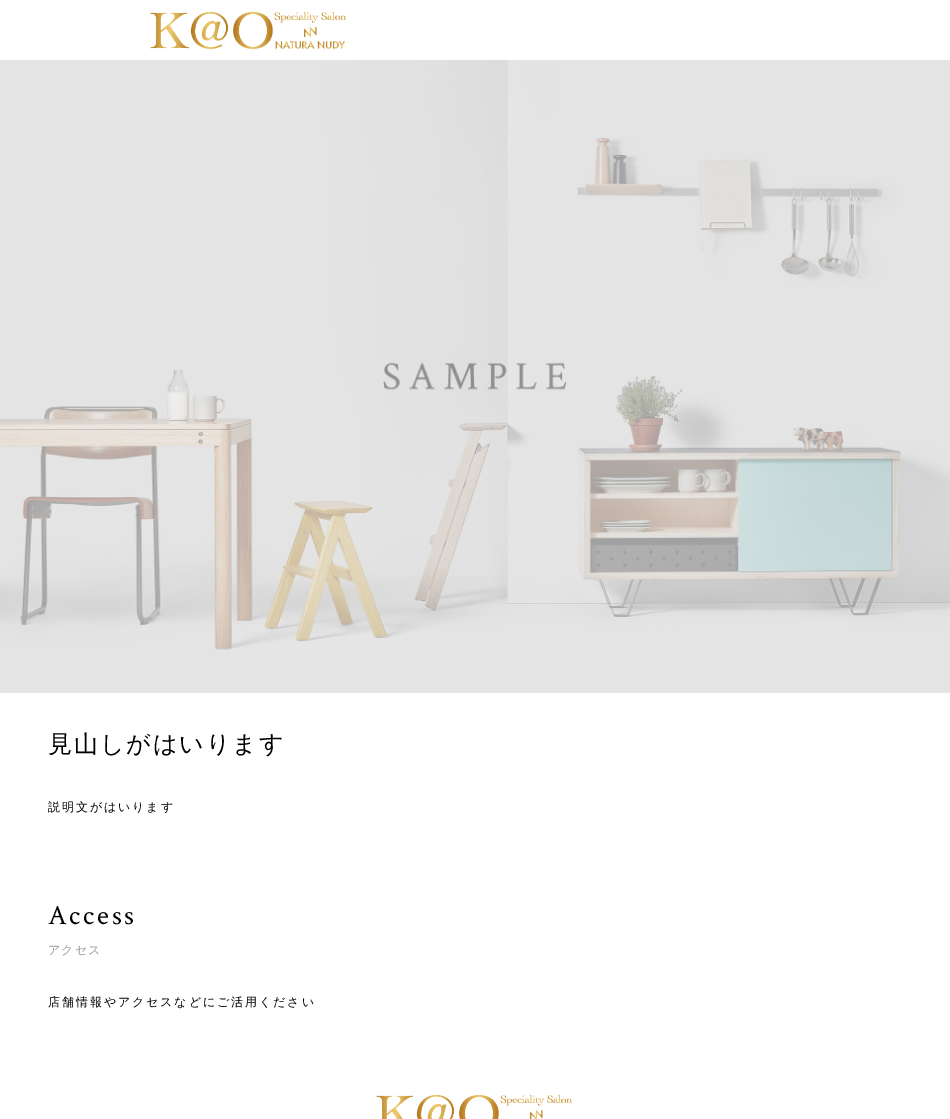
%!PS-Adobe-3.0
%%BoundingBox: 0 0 950 1119
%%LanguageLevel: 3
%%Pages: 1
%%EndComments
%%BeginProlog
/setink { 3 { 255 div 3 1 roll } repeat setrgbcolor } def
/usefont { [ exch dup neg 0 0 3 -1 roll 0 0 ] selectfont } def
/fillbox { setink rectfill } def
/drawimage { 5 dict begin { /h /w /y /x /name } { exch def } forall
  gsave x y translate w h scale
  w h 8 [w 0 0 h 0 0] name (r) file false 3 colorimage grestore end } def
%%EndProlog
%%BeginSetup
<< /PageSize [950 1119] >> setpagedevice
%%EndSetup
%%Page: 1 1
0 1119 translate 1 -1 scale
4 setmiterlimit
0 0 950 1119 255 255 255 fillbox
(assets/img1.rgb) 150 11 196 39 drawimage
(assets/img2.rgb) 0 60 950 633 drawimage
/WenQuanYiZenHei-Medium 24 usefont
0 0 0 setink
48 752 moveto 1.9 0 (見山しがはいります) ashow
/WenQuanYiZenHei-Medium 12 usefont
48 811 moveto 1.9 0 (説明文がはいります) ashow
/CrimsonText-Regular 28 usefont
48 924 moveto 2.75 0 (Access) ashow
/WenQuanYiZenHei-Medium 12 usefont
153 153 153 setink
48 954 moveto 1 0 (アクセス) ashow
0 0 0 setink
48 1006 moveto 1.9 0 (店舗情報やアクセスなどにご活用ください) ashow
(assets/img3.rgb) 376 1094 196 25 drawimage
showpage
%%EOF
